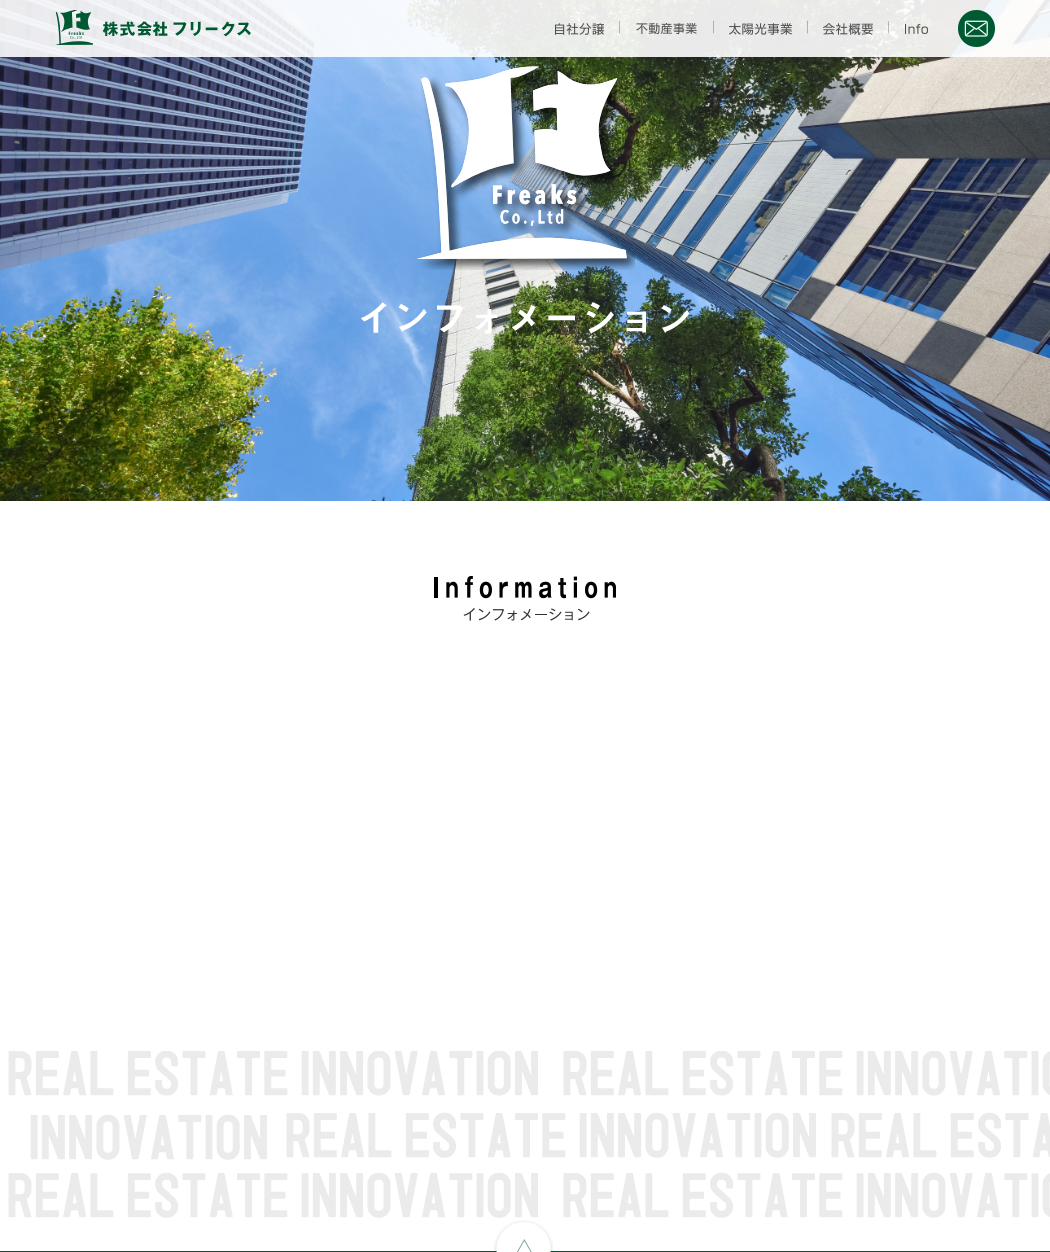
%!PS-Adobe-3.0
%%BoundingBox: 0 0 1050 1252
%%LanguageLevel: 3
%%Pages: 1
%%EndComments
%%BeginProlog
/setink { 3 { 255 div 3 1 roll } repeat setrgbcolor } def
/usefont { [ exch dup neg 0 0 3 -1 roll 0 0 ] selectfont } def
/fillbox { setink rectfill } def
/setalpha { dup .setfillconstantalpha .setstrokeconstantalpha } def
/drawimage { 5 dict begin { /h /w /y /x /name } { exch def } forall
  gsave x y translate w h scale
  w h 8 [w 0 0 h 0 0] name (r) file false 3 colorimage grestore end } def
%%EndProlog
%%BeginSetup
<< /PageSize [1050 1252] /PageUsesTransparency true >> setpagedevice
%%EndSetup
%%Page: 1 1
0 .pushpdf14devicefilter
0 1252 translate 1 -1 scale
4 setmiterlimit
0 0 1050 1252 255 255 255 fillbox
(assets/img12.rgb) 0 0 1050 501 drawimage
0.9 setalpha
0 0 1050 57 255 255 255 fillbox
1 setalpha
(assets/img1.rgb) 55 10 196 35 drawimage
(assets/img2.rgb) 555 23 49 12 drawimage
(assets/img3.rgb) 619 20 1 14 drawimage
(assets/img4.rgb) 636 23 61 11 drawimage
(assets/img5.rgb) 713 20 1 14 drawimage
(assets/img6.rgb) 729 23 63 12 drawimage
(assets/img7.rgb) 807 20 1 14 drawimage
(assets/img8.rgb) 823 23 50 12 drawimage
(assets/img9.rgb) 888 20 1 14 drawimage
(assets/img10.rgb) 905 24 23 10 drawimage
(assets/img11.rgb) 958 10 37 37 drawimage
(assets/img13.rgb) 417 66 218 204 drawimage
/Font-SemiBold 37.5 usefont
gsave 356 332 translate 0.1 rotate 0 0 moveto (インフォメーション) show grestore
(assets/img14.rgb) 434 576 182 45 drawimage
(assets/img15.rgb) 8 1051 1042 167 drawimage
0 1251 1050 1 0 90 49 fillbox
(assets/img16.rgb) 494 1220 59 32 drawimage
.poppdf14devicefilter showpage
%%EOF
